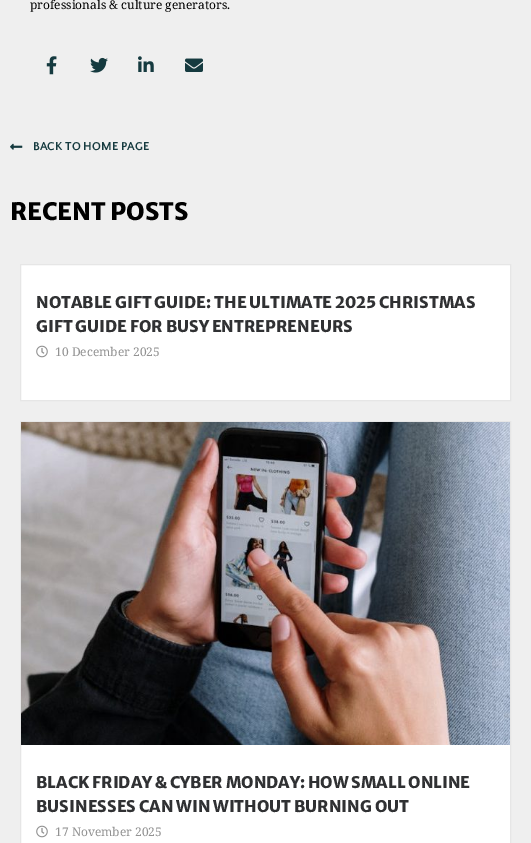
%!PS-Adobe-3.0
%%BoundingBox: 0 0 531 843
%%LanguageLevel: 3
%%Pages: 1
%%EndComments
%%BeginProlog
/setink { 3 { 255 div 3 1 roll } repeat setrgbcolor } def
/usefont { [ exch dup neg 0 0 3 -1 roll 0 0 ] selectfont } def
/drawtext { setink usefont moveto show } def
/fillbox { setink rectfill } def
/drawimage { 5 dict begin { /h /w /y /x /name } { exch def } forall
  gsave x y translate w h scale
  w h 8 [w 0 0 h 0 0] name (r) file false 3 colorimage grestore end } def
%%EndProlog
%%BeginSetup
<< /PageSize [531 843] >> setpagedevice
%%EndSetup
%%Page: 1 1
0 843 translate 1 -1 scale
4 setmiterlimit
0 0 531 843 239 239 239 fillbox
(professionals & culture generators.) 30 9 /NotoSerif-Regular 12 0 0 0 drawtext
(assets/img1.rgb) 46 56 11 19 drawimage
(assets/img2.rgb) 90 57 18 16 drawimage
(assets/img3.rgb) 138 56 16 16 drawimage
(assets/img4.rgb) 185 58 18 14 drawimage
(assets/img5.rgb) 10 143 13 7 drawimage
(BACK TO HOME PAGE) 33 150 /QuattrocentoSans-Bold 12 21 58 63 drawtext
(RECENT POSTS) 10 220 /MerriweatherSans-ExtraBold 24 0 0 0 drawtext
255 255 255 setink
20.5 264.5 moveto 510.5 264.5 lineto 510.5 400.5 lineto 20.5 400.5 lineto closepath gsave fill grestore
230 230 230 setink
stroke
(NOTABLE GIFT GUIDE: THE ULTIMATE 2025 CHRISTMAS) 36 308 /MerriweatherSans-ExtraBold 16 48 49 51 drawtext
(GIFT GUIDE FOR BUSY ENTREPRENEURS) 36 332 /MerriweatherSans-ExtraBold 16 48 49 51 drawtext
(assets/img6.rgb) 36 345 12 13 drawimage
(10 December 2025) 55 356 /NotoSerif-Regular 12 146 146 146 drawtext
21 745 489 98 255 255 255 fillbox
230 230 230 setink
20.5 421.5 490 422 rectstroke
(assets/img7.rgb) 21 422 489 323 drawimage
(BLACK FRIDAY & CYBER MONDAY: HOW SMALL ONLINE) 36 788 /MerriweatherSans-ExtraBold 16 48 49 51 drawtext
(BUSINESSES CAN WIN WITHOUT BURNING OUT) 36 812 /MerriweatherSans-ExtraBold 16 48 49 51 drawtext
(assets/img6.rgb) 36 825 12 13 drawimage
(17 November 2025) 55 836 /NotoSerif-Regular 12 146 146 146 drawtext
showpage
%%EOF
